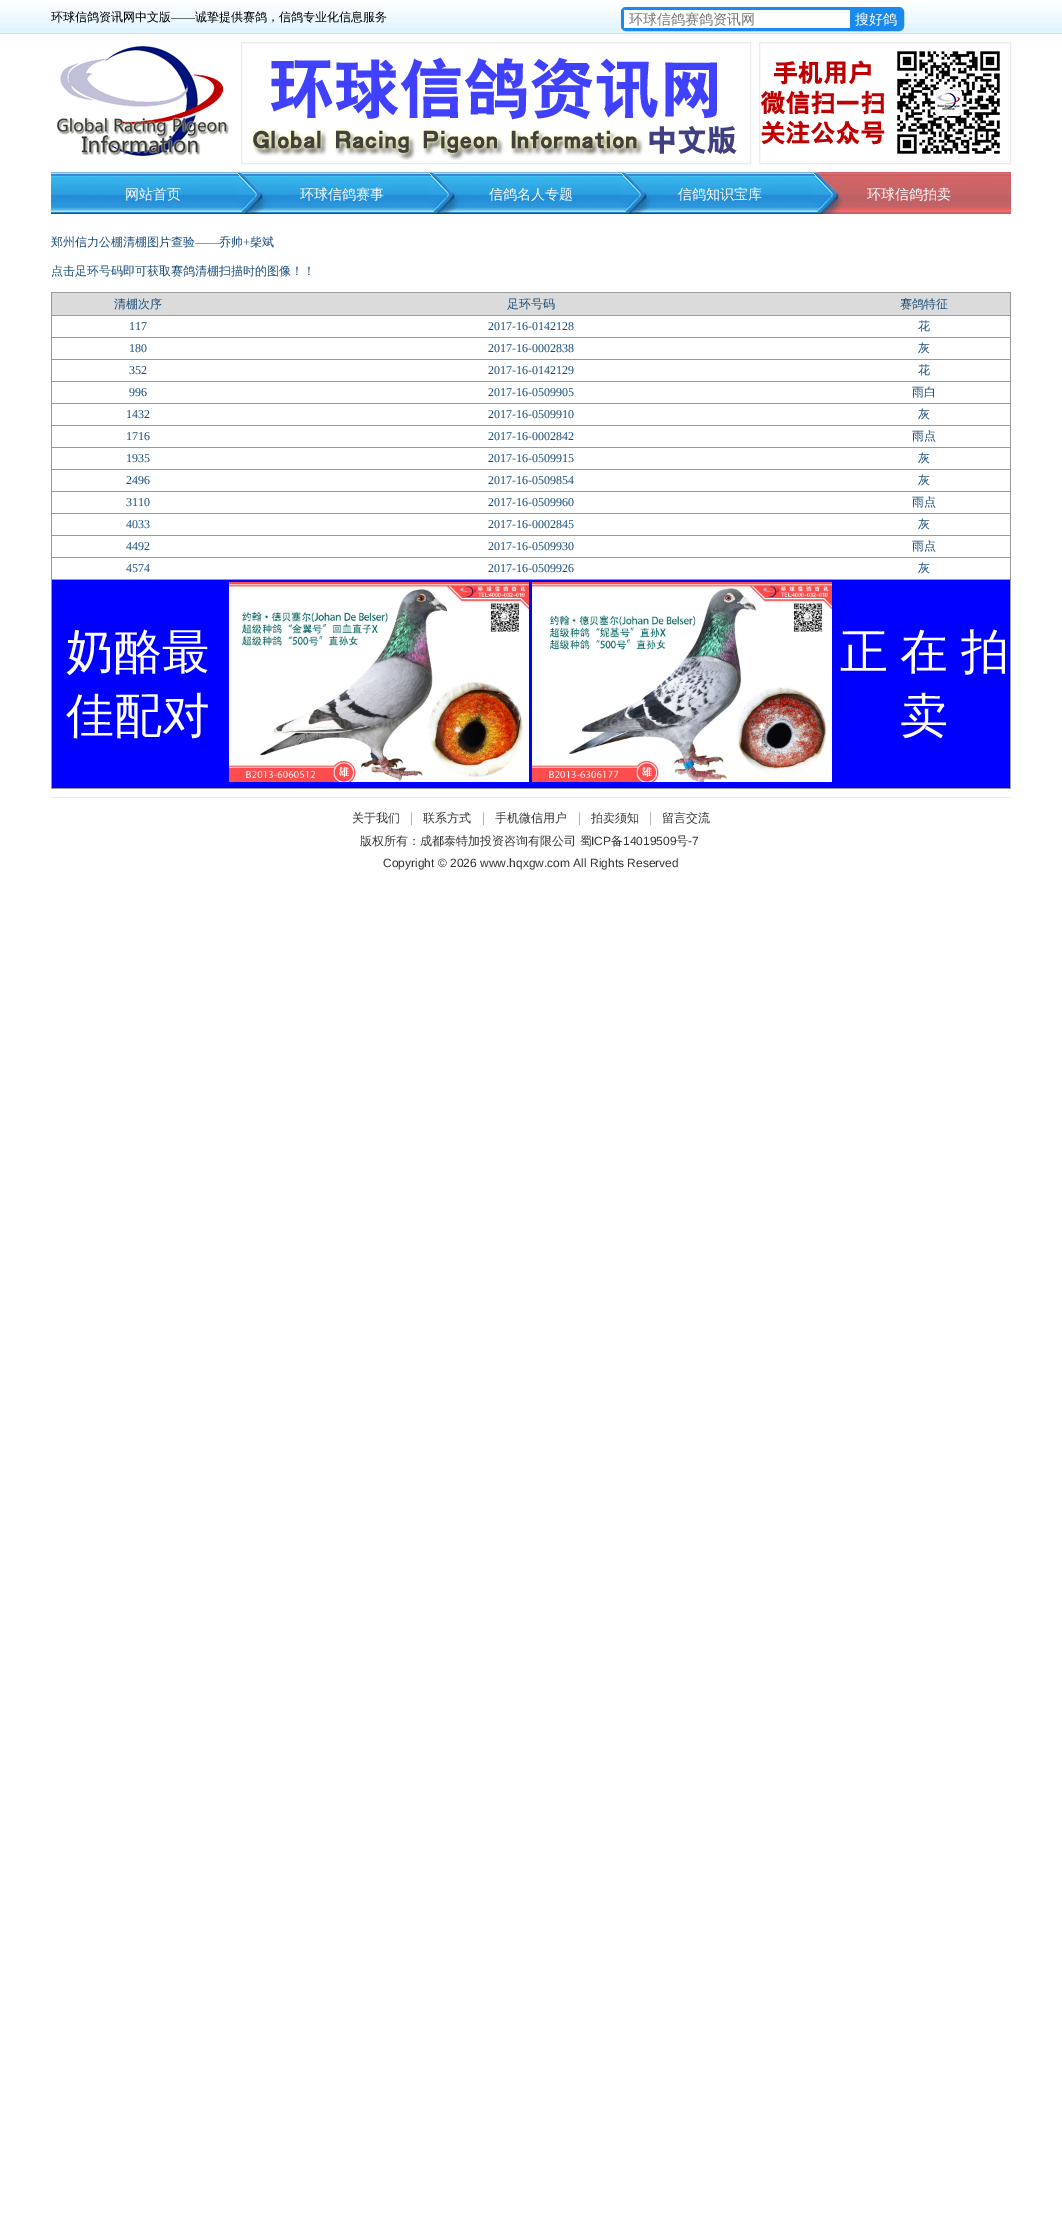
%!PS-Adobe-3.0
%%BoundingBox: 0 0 1062 2227
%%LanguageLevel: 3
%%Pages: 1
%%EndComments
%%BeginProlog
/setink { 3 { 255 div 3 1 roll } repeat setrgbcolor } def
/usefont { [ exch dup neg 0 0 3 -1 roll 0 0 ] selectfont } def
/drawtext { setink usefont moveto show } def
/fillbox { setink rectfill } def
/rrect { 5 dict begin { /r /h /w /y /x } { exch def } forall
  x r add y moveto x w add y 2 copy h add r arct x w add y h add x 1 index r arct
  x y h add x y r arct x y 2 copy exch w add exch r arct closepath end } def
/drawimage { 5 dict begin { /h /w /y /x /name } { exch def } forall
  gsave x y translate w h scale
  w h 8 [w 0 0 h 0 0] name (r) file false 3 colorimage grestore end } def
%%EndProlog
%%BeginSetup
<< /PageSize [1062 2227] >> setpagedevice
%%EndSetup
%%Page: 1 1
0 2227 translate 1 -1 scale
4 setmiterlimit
0 0 1062 2227 255 255 255 fillbox
(assets/img1.rgb) 0 3 1062 30 drawimage
0 33 1062 1 197 228 248 fillbox
(环球信鸽资讯网中文版) 51 21 /WenQuanYiZenHei-Medium 12 0 0 0 drawtext
(——) 171 21 /LiberationSerif-Regular 12 0 0 0 drawtext
(诚挚提供赛鸽，信鸽专业化信息服务) 195 21 /WenQuanYiZenHei-Medium 12 0 0 0 drawtext
26 137 237 setink
2 setlinewidth
622 8 281 22 4 rrect stroke
255 255 255 setink
626 9 moveto 850 9 lineto 850.5 9 851 9.5 851 10 curveto 851 28 lineto 851 28.5 850.5 29 850 29 curveto 626 29 lineto 624.5 29 623 27.5 623 26 curveto 623 12 lineto 623 10.5 624.5 9 626 9 curveto closepath fill
gsave
623 9 279 20 rectclip
26 137 237 setink
626 9 moveto 621 9 623 16 623 19 curveto 623 22 621 29 626 29 curveto 850 29 lineto 852 29 851 20 851 19 curveto 851 18 852 9 850 9 curveto closepath 624 10 moveto 624 28 lineto 850 28 lineto 850 10 lineto closepath eofill
grestore
(环球信鸽赛鸽资讯网) 629 24 /WenQuanYiZenHei-Medium 14 117 117 117 drawtext
26 137 237 setink
850 9 moveto 899 9 lineto 900.5 9 902 10.5 902 12 curveto 902 26 lineto 902 27.5 900.5 29 899 29 curveto 850 29 lineto closepath fill
(搜好鸽) 855 24 /WenQuanYiZenHei-Medium 14 255 255 255 drawtext
(assets/img2.rgb) 56 46 173 111 drawimage
235 235 235 setink
1 setlinewidth
241.5 42.5 509 121 rectstroke
(assets/img3.rgb) 250 57 487 104 drawimage
759.5 42.5 251 121 rectstroke
(assets/img4.rgb) 761 51 240 104 drawimage
(assets/img5.rgb) 51 172 960 42 drawimage
(assets/img6.rgb) 223 172 621 42 drawimage
(网站首页) 125 199 /WenQuanYiZenHei-Medium 14 255 255 255 drawtext
(环球信鸽赛事) 300 199 /WenQuanYiZenHei-Medium 14 255 255 255 drawtext
(信鸽名人专题) 489 199 /WenQuanYiZenHei-Medium 14 255 255 255 drawtext
(信鸽知识宝库) 678 199 /WenQuanYiZenHei-Medium 14 255 255 255 drawtext
(环球信鸽拍卖) 867 199 /WenQuanYiZenHei-Medium 14 255 255 255 drawtext
(郑州信力公棚清棚图片查验) 51 246 /WenQuanYiZenHei-Medium 12 25 77 125 drawtext
(——) 195 246 /LiberationSerif-Regular 12 25 77 125 drawtext
(乔帅) 219 246 /WenQuanYiZenHei-Medium 12 25 77 125 drawtext
(+) 243 246 /LiberationSerif-Regular 12 25 77 125 drawtext
(柴斌) 250 246 /WenQuanYiZenHei-Medium 12 25 77 125 drawtext
(点击足环号码即可获取赛鸽清棚扫描时的图像！！) 51 275 /WenQuanYiZenHei-Medium 12 25 77 125 drawtext
51 292 960 497 153 153 153 fillbox
52 293 958 22 219 219 219 fillbox
(清棚次序) 114 308 /WenQuanYiZenHei-Medium 12 25 77 125 drawtext
(足环号码) 507 308 /WenQuanYiZenHei-Medium 12 25 77 125 drawtext
(赛鸽特征) 900 308 /WenQuanYiZenHei-Medium 12 25 77 125 drawtext
52 316 958 21 255 255 255 fillbox
(117) 129 330 /LiberationSerif-Regular 12 25 77 125 drawtext
(2017-16-0142128) 488 330 /LiberationSerif-Regular 12 25 77 125 drawtext
(花) 918 330 /WenQuanYiZenHei-Medium 12 25 77 125 drawtext
52 338 958 21 255 255 255 fillbox
(180) 129 352 /LiberationSerif-Regular 12 25 77 125 drawtext
(2017-16-0002838) 488 352 /LiberationSerif-Regular 12 25 77 125 drawtext
(灰) 918 352 /WenQuanYiZenHei-Medium 12 25 77 125 drawtext
52 360 958 21 255 255 255 fillbox
(352) 129 374 /LiberationSerif-Regular 12 25 77 125 drawtext
(2017-16-0142129) 488 374 /LiberationSerif-Regular 12 25 77 125 drawtext
(花) 918 374 /WenQuanYiZenHei-Medium 12 25 77 125 drawtext
52 382 958 21 255 255 255 fillbox
(996) 129 396 /LiberationSerif-Regular 12 25 77 125 drawtext
(2017-16-0509905) 488 396 /LiberationSerif-Regular 12 25 77 125 drawtext
(雨白) 912 396 /WenQuanYiZenHei-Medium 12 25 77 125 drawtext
52 404 958 21 255 255 255 fillbox
(1432) 126 418 /LiberationSerif-Regular 12 25 77 125 drawtext
(2017-16-0509910) 488 418 /LiberationSerif-Regular 12 25 77 125 drawtext
(灰) 918 418 /WenQuanYiZenHei-Medium 12 25 77 125 drawtext
52 426 958 21 255 255 255 fillbox
(1716) 126 440 /LiberationSerif-Regular 12 25 77 125 drawtext
(2017-16-0002842) 488 440 /LiberationSerif-Regular 12 25 77 125 drawtext
(雨点) 912 440 /WenQuanYiZenHei-Medium 12 25 77 125 drawtext
52 448 958 21 255 255 255 fillbox
(1935) 126 462 /LiberationSerif-Regular 12 25 77 125 drawtext
(2017-16-0509915) 488 462 /LiberationSerif-Regular 12 25 77 125 drawtext
(灰) 918 462 /WenQuanYiZenHei-Medium 12 25 77 125 drawtext
52 470 958 21 255 255 255 fillbox
(2496) 126 484 /LiberationSerif-Regular 12 25 77 125 drawtext
(2017-16-0509854) 488 484 /LiberationSerif-Regular 12 25 77 125 drawtext
(灰) 918 484 /WenQuanYiZenHei-Medium 12 25 77 125 drawtext
52 492 958 21 255 255 255 fillbox
(3110) 126 506 /LiberationSerif-Regular 12 25 77 125 drawtext
(2017-16-0509960) 488 506 /LiberationSerif-Regular 12 25 77 125 drawtext
(雨点) 912 506 /WenQuanYiZenHei-Medium 12 25 77 125 drawtext
52 514 958 21 255 255 255 fillbox
(4033) 126 528 /LiberationSerif-Regular 12 25 77 125 drawtext
(2017-16-0002845) 488 528 /LiberationSerif-Regular 12 25 77 125 drawtext
(灰) 918 528 /WenQuanYiZenHei-Medium 12 25 77 125 drawtext
52 536 958 21 255 255 255 fillbox
(4492) 126 550 /LiberationSerif-Regular 12 25 77 125 drawtext
(2017-16-0509930) 488 550 /LiberationSerif-Regular 12 25 77 125 drawtext
(雨点) 912 550 /WenQuanYiZenHei-Medium 12 25 77 125 drawtext
52 558 958 21 255 255 255 fillbox
(4574) 126 572 /LiberationSerif-Regular 12 25 77 125 drawtext
(2017-16-0509926) 488 572 /LiberationSerif-Regular 12 25 77 125 drawtext
(灰) 918 572 /WenQuanYiZenHei-Medium 12 25 77 125 drawtext
52 580 958 208 0 0 255 fillbox
(奶酪最) 66 668 /WenQuanYiZenHei-Medium 48 255 255 255 drawtext
(佳配对) 66 732 /WenQuanYiZenHei-Medium 48 255 255 255 drawtext
(assets/img7.rgb) 229 582 300 200 drawimage
(assets/img8.rgb) 532 582 300 200 drawimage
840 668 moveto -2 0 32 (正 在 拍) widthshow
(卖) 900 732 /WenQuanYiZenHei-Medium 48 255 255 255 drawtext
51 797 960 1 232 232 232 fillbox
(关于我们) 352 822 /WenQuanYiZenHei-Medium 12 51 51 51 drawtext
(|) 410 822 /LiberationSerif-Regular 14 153 153 153 drawtext
(联系方式) 423 822 /WenQuanYiZenHei-Medium 12 51 51 51 drawtext
(|) 482 822 /LiberationSerif-Regular 14 153 153 153 drawtext
(手机微信用户) 495 822 /WenQuanYiZenHei-Medium 12 51 51 51 drawtext
(|) 578 822 /LiberationSerif-Regular 14 153 153 153 drawtext
(拍卖须知) 591 822 /WenQuanYiZenHei-Medium 12 51 51 51 drawtext
(|) 649 822 /LiberationSerif-Regular 14 153 153 153 drawtext
(留言交流) 662 822 /WenQuanYiZenHei-Medium 12 51 51 51 drawtext
(版权所有：成都泰特加投资咨询有限公司 蜀) 360 845 /WenQuanYiZenHei-Medium 12 51 51 51 drawtext
(ICP) 591 845 /LiberationSans-Regular 12 51 51 51 drawtext
(备) 611 845 /WenQuanYiZenHei-Medium 12 51 51 51 drawtext
(14019509) 623 845 /LiberationSans-Regular 12 51 51 51 drawtext
(号) 676 845 /WenQuanYiZenHei-Medium 12 51 51 51 drawtext
(-7) 688 845 /LiberationSans-Regular 12 51 51 51 drawtext
(Copyright © 2026 www.hqxgw.com All Rights Reserved) 383 867 /LiberationSans-Regular 12 51 51 51 drawtext
showpage
%%EOF
